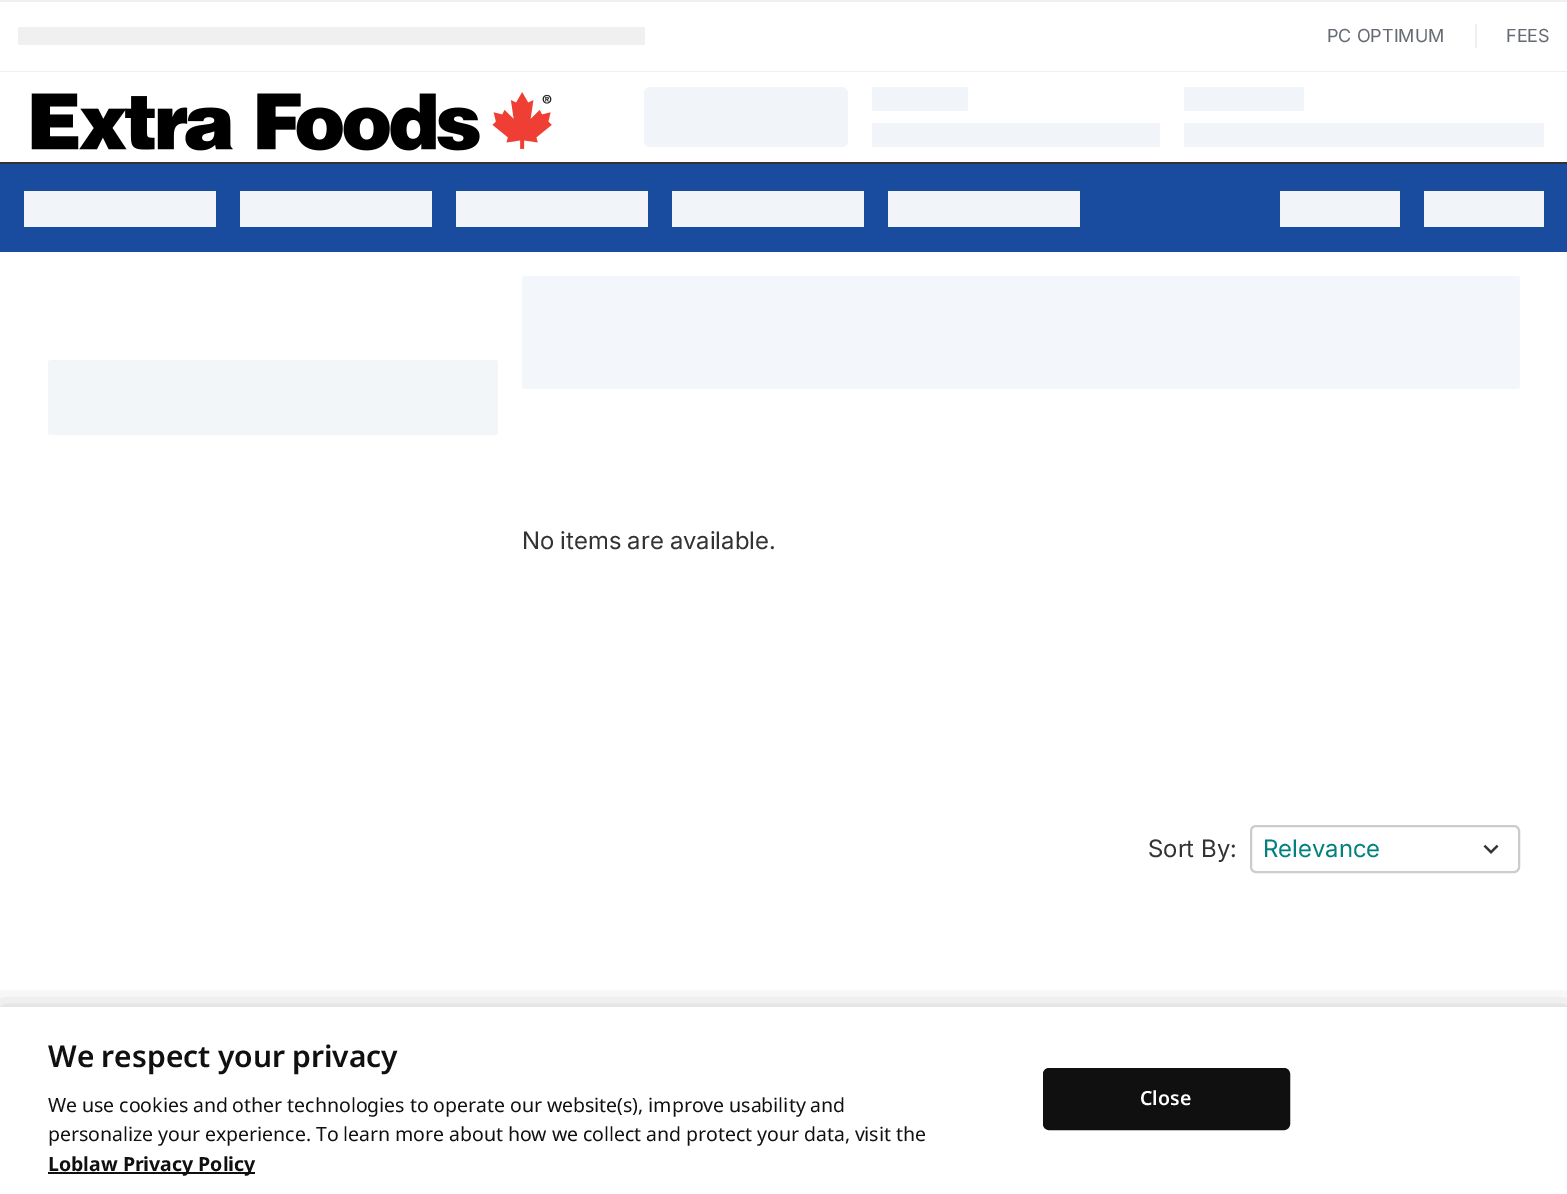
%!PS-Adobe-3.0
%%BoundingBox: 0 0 1567 1194
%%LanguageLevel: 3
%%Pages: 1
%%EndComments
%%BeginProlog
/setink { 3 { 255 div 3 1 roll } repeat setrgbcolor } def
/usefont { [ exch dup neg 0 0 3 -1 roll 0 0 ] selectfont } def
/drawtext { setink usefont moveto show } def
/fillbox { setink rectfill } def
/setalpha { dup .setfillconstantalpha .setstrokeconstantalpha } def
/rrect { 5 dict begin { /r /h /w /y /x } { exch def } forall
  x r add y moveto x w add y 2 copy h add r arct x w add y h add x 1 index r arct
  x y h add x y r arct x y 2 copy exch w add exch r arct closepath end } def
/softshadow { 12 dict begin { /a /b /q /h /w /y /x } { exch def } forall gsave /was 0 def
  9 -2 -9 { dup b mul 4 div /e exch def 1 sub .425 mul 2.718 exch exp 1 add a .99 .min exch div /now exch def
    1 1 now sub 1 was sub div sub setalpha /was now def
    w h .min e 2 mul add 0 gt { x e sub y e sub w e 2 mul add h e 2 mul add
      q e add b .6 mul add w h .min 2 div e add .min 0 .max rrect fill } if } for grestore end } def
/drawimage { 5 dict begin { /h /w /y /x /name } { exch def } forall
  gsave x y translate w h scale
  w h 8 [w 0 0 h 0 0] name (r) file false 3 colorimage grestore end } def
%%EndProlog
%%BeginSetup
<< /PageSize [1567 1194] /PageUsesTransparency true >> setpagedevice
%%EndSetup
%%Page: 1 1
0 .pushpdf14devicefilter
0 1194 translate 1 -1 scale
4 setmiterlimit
0 0 1567 1194 255 255 255 fillbox
0 0 1567 2 240 240 240 fillbox
0 71 1567 1 240 240 240 fillbox
18 27 627 18 240 240 240 fillbox
(PC OPTIMUM) 1327 42 /Inter-Regular 18 102 107 115 drawtext
1475 24 2 24 240 240 240 fillbox
(FEES) 1506 42 /Inter-Regular 18 102 107 115 drawtext
(assets/img1.rgb) 31 92 521 59 drawimage
241 245 249 setink
644 87 204 60 6 rrect fill
872 87 96 24 241 245 249 fillbox
872 123 288 24 241 245 249 fillbox
1184 87 120 24 241 245 249 fillbox
1184 123 360 24 241 245 249 fillbox
0 164 1567 88 25 75 159 fillbox
0 162 1567 2 51 51 51 fillbox
24 191 192 36 241 245 249 fillbox
240 191 192 36 241 245 249 fillbox
456 191 192 36 241 245 249 fillbox
672 191 192 36 241 245 249 fillbox
888 191 192 36 241 245 249 fillbox
1280 191 120 36 241 245 249 fillbox
1424 191 120 36 241 245 249 fillbox
242 246 249 setink
48 360 450 75 3 rrect fill
243 246 250 setink
522 276 998 113 3 rrect fill
/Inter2-Regular 24 usefont
51 51 51 setink
522 549 moveto -0.5 0 32 (No items are available.) widthshow
(Sort By:) 1148 857 /Inter2-Regular 24 51 51 51 drawtext
204 204 204 setink
2 setlinewidth
1251 826 268 46 5 rrect stroke
(Relevance) 1263 857 /Inter2-Regular 24 0 129 127 drawtext
(assets/img2.rgb) 1483 844 16 10 drawimage
gsave
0 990 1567 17 rectclip
0 0 0 setink
0 1007 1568 187 0 13.5 0.2 softshadow
grestore
/NotoSans-SemiBold 30 usefont
16 16 16 setink
48 1067 moveto -0.5 0 32 (We respect your privacy) widthshow
/NotoSans-Regular 19.5 usefont
48 1112 moveto -0.25 0 32 (We use cookies and other technologies to operate our website\(s\), improve usability and) widthshow
48 1141 moveto -0.25 0 32 (personalize your experience. To learn more about how we collect and protect your data, visit the) widthshow
48 1172 207 2 16 16 16 fillbox
(Loblaw Privacy Policy) 48 1171 /NotoSans-Bold 19.5 16 16 16 drawtext
1044 1069 245 60 5 rrect gsave fill grestore
stroke
(Close) 1140 1105 /NotoSans-SemiBold 19.5 255 255 255 drawtext
.poppdf14devicefilter showpage
%%EOF
